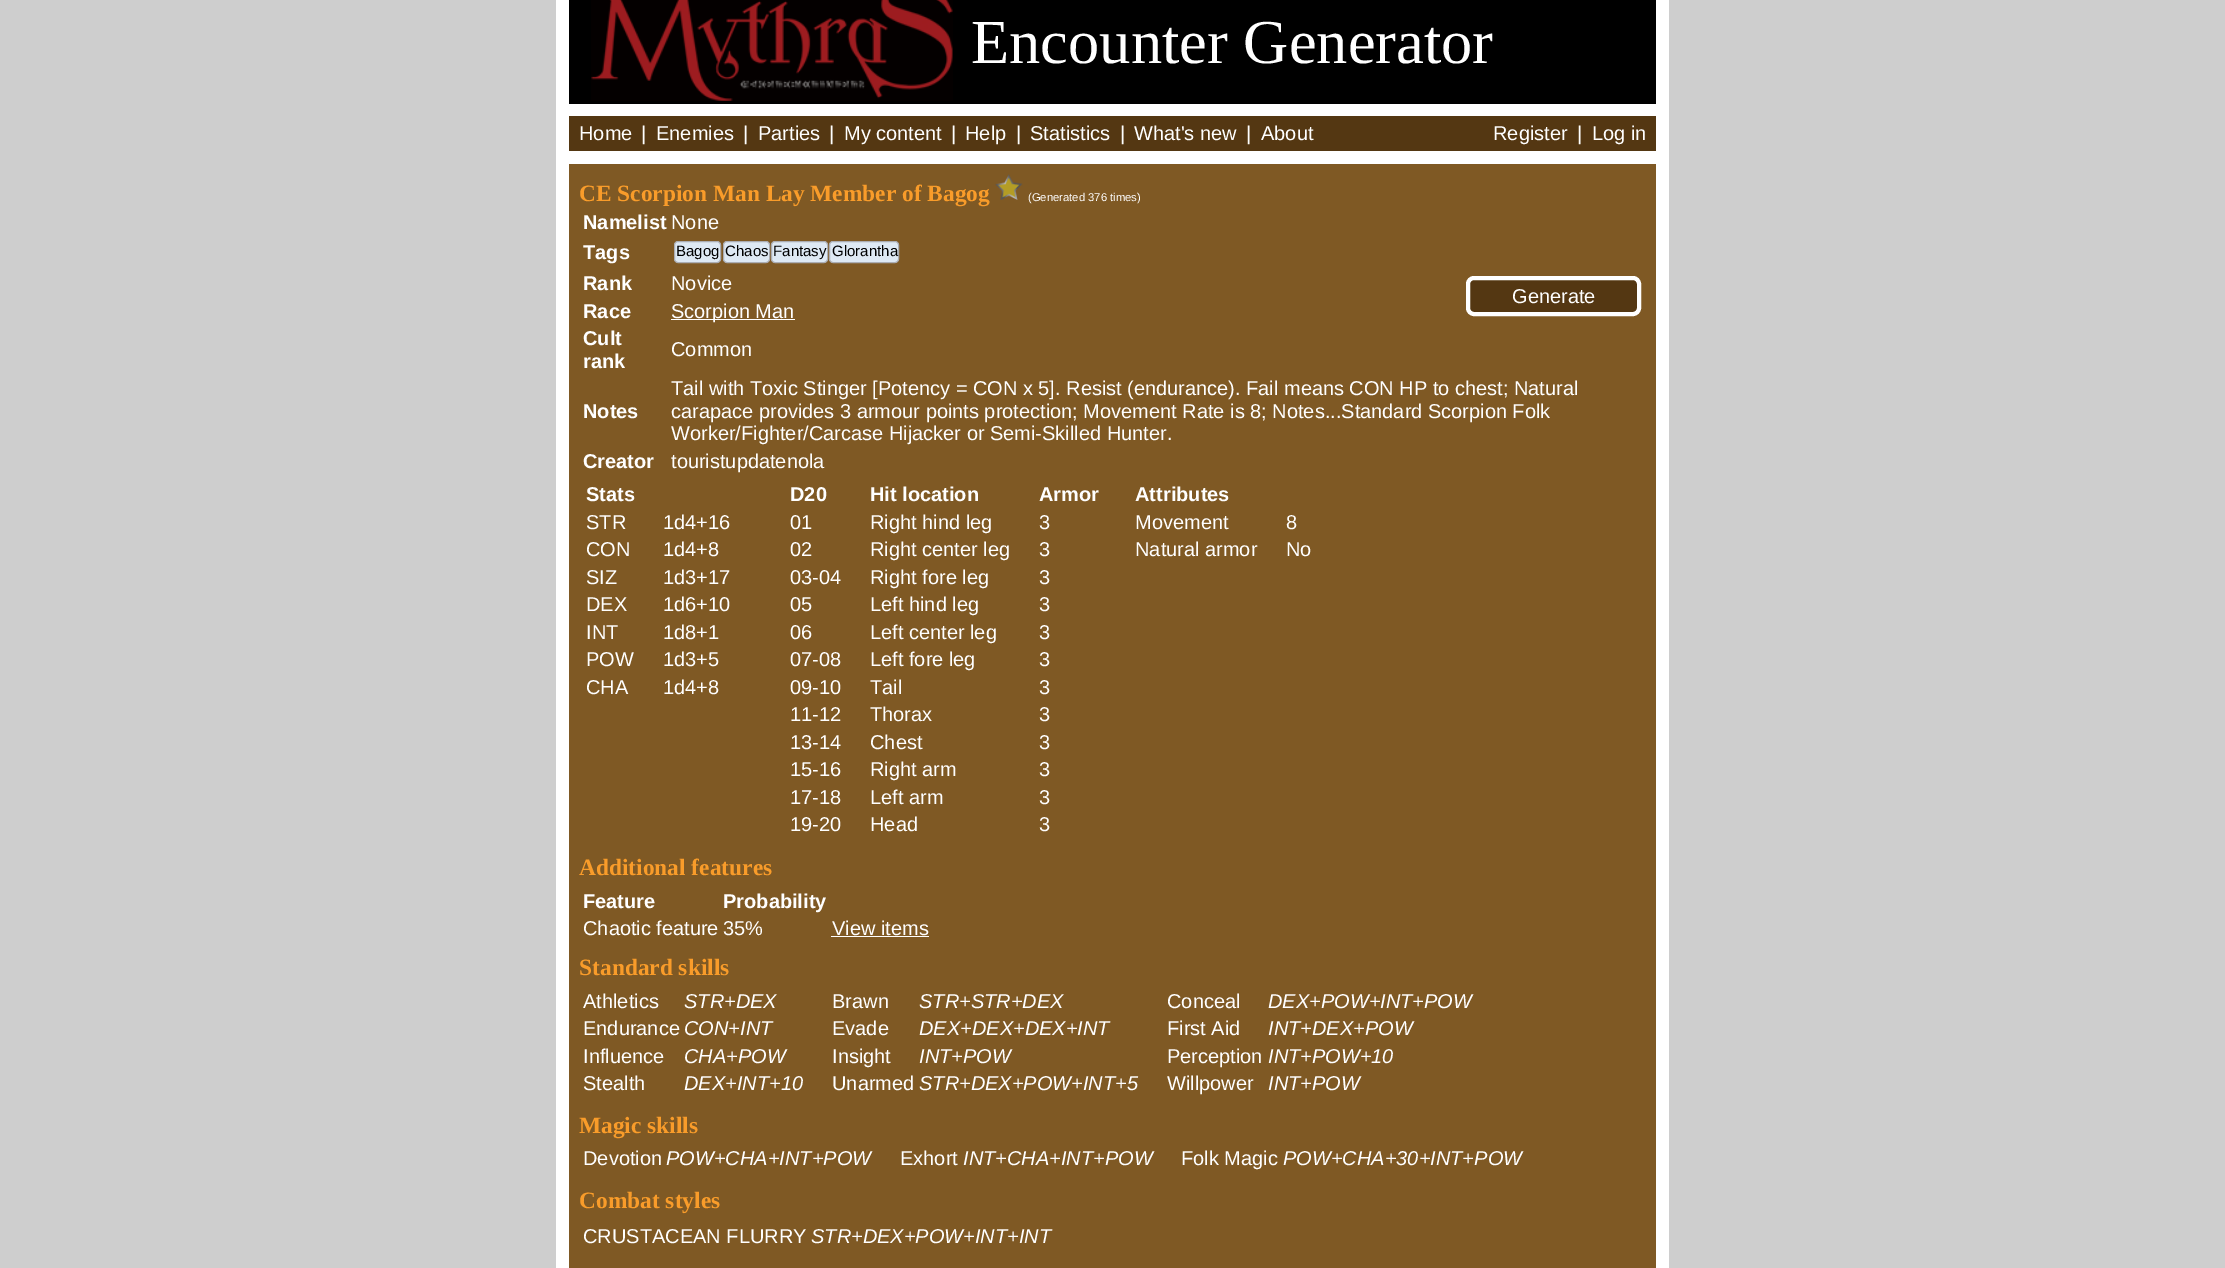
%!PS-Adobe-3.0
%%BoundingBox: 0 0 2225 1268
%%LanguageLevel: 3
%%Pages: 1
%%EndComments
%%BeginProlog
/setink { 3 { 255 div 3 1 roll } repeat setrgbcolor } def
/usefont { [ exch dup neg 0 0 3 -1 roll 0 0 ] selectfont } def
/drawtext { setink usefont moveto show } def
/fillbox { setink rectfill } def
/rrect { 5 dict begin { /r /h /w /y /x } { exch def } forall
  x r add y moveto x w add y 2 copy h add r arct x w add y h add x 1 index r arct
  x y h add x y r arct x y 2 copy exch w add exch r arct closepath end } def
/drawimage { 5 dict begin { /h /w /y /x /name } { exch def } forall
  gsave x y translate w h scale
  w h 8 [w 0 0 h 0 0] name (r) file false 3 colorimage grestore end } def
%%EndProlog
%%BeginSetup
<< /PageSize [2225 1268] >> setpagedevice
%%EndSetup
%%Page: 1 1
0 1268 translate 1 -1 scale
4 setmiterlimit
0 0 2225 1268 206 206 206 fillbox
556 0 1113 1268 255 255 255 fillbox
569 0 1087 104 0 0 0 fillbox
(assets/img1.rgb) 591 0 362 101 drawimage
(Encounter Generator) 971 63 /LiberationSerif-Regular 62.5 255 255 255 drawtext
569 116 1087 35 84 55 18 fillbox
(Home) 579 140 /LiberationSans-Regular 20 255 255 255 drawtext
(|) 641 140 /LiberationSans-Regular 20 255 255 255 drawtext
(Enemies) 656 140 /LiberationSans-Regular 20 255 255 255 drawtext
(|) 743 140 /LiberationSans-Regular 20 255 255 255 drawtext
(Parties) 758 140 /LiberationSans-Regular 20 255 255 255 drawtext
(|) 829 140 /LiberationSans-Regular 20 255 255 255 drawtext
(My content) 844 140 /LiberationSans-Regular 20 255 255 255 drawtext
(|) 951 140 /LiberationSans-Regular 20 255 255 255 drawtext
(Help) 965 140 /LiberationSans-Regular 20 255 255 255 drawtext
(|) 1016 140 /LiberationSans-Regular 20 255 255 255 drawtext
(Statistics) 1030 140 /LiberationSans-Regular 20 255 255 255 drawtext
(|) 1120 140 /LiberationSans-Regular 20 255 255 255 drawtext
(What's new) 1134 140 /LiberationSans-Regular 20 255 255 255 drawtext
(|) 1246 140 /LiberationSans-Regular 20 255 255 255 drawtext
(About) 1261 140 /LiberationSans-Regular 20 255 255 255 drawtext
(Register) 1493 140 /LiberationSans-Regular 20 255 255 255 drawtext
(|) 1577 140 /LiberationSans-Regular 20 255 255 255 drawtext
(Log in) 1592 140 /LiberationSans-Regular 20 255 255 255 drawtext
569 164 1087 1104 127 89 36 fillbox
(CE Scorpion Man Lay Member of Bagog) 579 201 /LiberationSerif-Bold 23.4 249 156 42 drawtext
(assets/img2.rgb) 995 174 28 26 drawimage
(\(Generated 376 times\)) 1028 201 /LiberationSans-Regular 11.25 255 255 255 drawtext
(Namelist) 583 229 /LiberationSans-Bold 20 255 255 255 drawtext
(None) 671 229 /LiberationSans-Regular 20 255 255 255 drawtext
(Tags) 583 259 /LiberationSans-Bold 20 255 255 255 drawtext
222 233 244 setink
674.5 241.5 46 21 3.5 rrect gsave fill grestore
171 173 179 setink
stroke
(Bagog) 676 256 /LiberationSans-Regular 15 0 0 0 drawtext
222 233 244 setink
723.5 241.5 46 21 3.5 rrect gsave fill grestore
171 173 179 setink
stroke
(Chaos) 725 256 /LiberationSans-Regular 15 0 0 0 drawtext
222 233 244 setink
771.5 241.5 56 21 3.5 rrect gsave fill grestore
171 173 179 setink
stroke
(Fantasy) 773 256 /LiberationSans-Regular 15 0 0 0 drawtext
222 233 244 setink
829.5 241.5 69 21 3.5 rrect gsave fill grestore
171 173 179 setink
stroke
(Glorantha) 832 256 /LiberationSans-Regular 15 0 0 0 drawtext
(Rank) 583 290 /LiberationSans-Bold 20 255 255 255 drawtext
(Novice) 671 290 /LiberationSans-Regular 20 255 255 255 drawtext
(Race) 583 318 /LiberationSans-Bold 20 255 255 255 drawtext
671 319 124 1 255 255 255 fillbox
(Scorpion Man) 671 318 /LiberationSans-Regular 20 255 255 255 drawtext
(Cult) 583 345 /LiberationSans-Bold 20 255 255 255 drawtext
(rank) 583 368 /LiberationSans-Bold 20 255 255 255 drawtext
(Common) 671 356 /LiberationSans-Regular 20 255 255 255 drawtext
(Notes) 583 418 /LiberationSans-Bold 20 255 255 255 drawtext
(Tail with Toxic Stinger [Potency = CON x 5]. Resist \(endurance\). Fail means CON HP to chest; Natural) 671 395 /LiberationSans-Regular 20 255 255 255 drawtext
(carapace provides 3 armour points protection; Movement Rate is 8; Notes...Standard Scorpion Folk) 671 418 /LiberationSans-Regular 20 255 255 255 drawtext
(Worker/Fighter/Carcase Hijacker or Semi-Skilled Hunter.) 671 440 /LiberationSans-Regular 20 255 255 255 drawtext
(Creator) 583 468 /LiberationSans-Bold 20 255 255 255 drawtext
(touristupdatenola) 671 468 /LiberationSans-Regular 20 255 255 255 drawtext
84 55 18 setink
1468 278 171 36 6 rrect gsave fill grestore
255 255 255 setink
4 setlinewidth
stroke
(Generate) 1512 303 /LiberationSans-Regular 20 255 255 255 drawtext
(Stats) 586 501 /LiberationSans-Bold 20 255 255 255 drawtext
(STR) 586 529 /LiberationSans-Regular 20 255 255 255 drawtext
(1d4+16) 663 529 /LiberationSans-Regular 20 255 255 255 drawtext
(CON) 586 556 /LiberationSans-Regular 20 255 255 255 drawtext
(1d4+8) 663 556 /LiberationSans-Regular 20 255 255 255 drawtext
(SIZ) 586 584 /LiberationSans-Regular 20 255 255 255 drawtext
(1d3+17) 663 584 /LiberationSans-Regular 20 255 255 255 drawtext
(DEX) 586 611 /LiberationSans-Regular 20 255 255 255 drawtext
(1d6+10) 663 611 /LiberationSans-Regular 20 255 255 255 drawtext
(INT) 586 639 /LiberationSans-Regular 20 255 255 255 drawtext
(1d8+1) 663 639 /LiberationSans-Regular 20 255 255 255 drawtext
(POW) 586 666 /LiberationSans-Regular 20 255 255 255 drawtext
(1d3+5) 663 666 /LiberationSans-Regular 20 255 255 255 drawtext
(CHA) 586 694 /LiberationSans-Regular 20 255 255 255 drawtext
(1d4+8) 663 694 /LiberationSans-Regular 20 255 255 255 drawtext
(D20) 790 501 /LiberationSans-Bold 20 255 255 255 drawtext
(Hit location) 870 501 /LiberationSans-Bold 20 255 255 255 drawtext
(Armor) 1039 501 /LiberationSans-Bold 20 255 255 255 drawtext
(01) 790 529 /LiberationSans-Regular 20 255 255 255 drawtext
(Right hind leg) 870 529 /LiberationSans-Regular 20 255 255 255 drawtext
(3) 1039 529 /LiberationSans-Regular 20 255 255 255 drawtext
(02) 790 556 /LiberationSans-Regular 20 255 255 255 drawtext
(Right center leg) 870 556 /LiberationSans-Regular 20 255 255 255 drawtext
(3) 1039 556 /LiberationSans-Regular 20 255 255 255 drawtext
(03-04) 790 584 /LiberationSans-Regular 20 255 255 255 drawtext
(Right fore leg) 870 584 /LiberationSans-Regular 20 255 255 255 drawtext
(3) 1039 584 /LiberationSans-Regular 20 255 255 255 drawtext
(05) 790 611 /LiberationSans-Regular 20 255 255 255 drawtext
(Left hind leg) 870 611 /LiberationSans-Regular 20 255 255 255 drawtext
(3) 1039 611 /LiberationSans-Regular 20 255 255 255 drawtext
(06) 790 639 /LiberationSans-Regular 20 255 255 255 drawtext
(Left center leg) 870 639 /LiberationSans-Regular 20 255 255 255 drawtext
(3) 1039 639 /LiberationSans-Regular 20 255 255 255 drawtext
(07-08) 790 666 /LiberationSans-Regular 20 255 255 255 drawtext
(Left fore leg) 870 666 /LiberationSans-Regular 20 255 255 255 drawtext
(3) 1039 666 /LiberationSans-Regular 20 255 255 255 drawtext
(09-10) 790 694 /LiberationSans-Regular 20 255 255 255 drawtext
(Tail) 870 694 /LiberationSans-Regular 20 255 255 255 drawtext
(3) 1039 694 /LiberationSans-Regular 20 255 255 255 drawtext
(11-12) 790 721 /LiberationSans-Regular 20 255 255 255 drawtext
(Thorax) 870 721 /LiberationSans-Regular 20 255 255 255 drawtext
(3) 1039 721 /LiberationSans-Regular 20 255 255 255 drawtext
(13-14) 790 749 /LiberationSans-Regular 20 255 255 255 drawtext
(Chest) 870 749 /LiberationSans-Regular 20 255 255 255 drawtext
(3) 1039 749 /LiberationSans-Regular 20 255 255 255 drawtext
(15-16) 790 776 /LiberationSans-Regular 20 255 255 255 drawtext
(Right arm) 870 776 /LiberationSans-Regular 20 255 255 255 drawtext
(3) 1039 776 /LiberationSans-Regular 20 255 255 255 drawtext
(17-18) 790 804 /LiberationSans-Regular 20 255 255 255 drawtext
(Left arm) 870 804 /LiberationSans-Regular 20 255 255 255 drawtext
(3) 1039 804 /LiberationSans-Regular 20 255 255 255 drawtext
(19-20) 790 831 /LiberationSans-Regular 20 255 255 255 drawtext
(Head) 870 831 /LiberationSans-Regular 20 255 255 255 drawtext
(3) 1039 831 /LiberationSans-Regular 20 255 255 255 drawtext
(Attributes) 1135 501 /LiberationSans-Bold 20 255 255 255 drawtext
(Movement) 1135 529 /LiberationSans-Regular 20 255 255 255 drawtext
(8) 1286 529 /LiberationSans-Regular 20 255 255 255 drawtext
(Natural armor) 1135 556 /LiberationSans-Regular 20 255 255 255 drawtext
(No) 1286 556 /LiberationSans-Regular 20 255 255 255 drawtext
(Additional features) 579 875 /LiberationSerif-Bold 23.4 249 156 42 drawtext
(Feature) 583 908 /LiberationSans-Bold 20 255 255 255 drawtext
(Probability) 723 908 /LiberationSans-Bold 20 255 255 255 drawtext
(Chaotic feature) 583 935 /LiberationSans-Regular 20 255 255 255 drawtext
(35%) 723 935 /LiberationSans-Regular 20 255 255 255 drawtext
(View items) 832 935 /LiberationSans-Regular 20 255 255 255 drawtext
831 936 98 1 255 255 255 fillbox
(Standard skills) 579 975 /LiberationSerif-Bold 23.4 249 156 42 drawtext
(Athletics) 583 1008 /LiberationSans-Regular 20 255 255 255 drawtext
(STR+DEX) 684 1008 /LiberationSans-Italic 20 255 255 255 drawtext
(Brawn) 832 1008 /LiberationSans-Regular 20 255 255 255 drawtext
(STR+STR+DEX) 919 1008 /LiberationSans-Italic 20 255 255 255 drawtext
(Conceal) 1167 1008 /LiberationSans-Regular 20 255 255 255 drawtext
(DEX+POW+INT+POW) 1268 1008 /LiberationSans-Italic 20 255 255 255 drawtext
(Endurance) 583 1035 /LiberationSans-Regular 20 255 255 255 drawtext
(CON+INT) 684 1035 /LiberationSans-Italic 20 255 255 255 drawtext
(Evade) 832 1035 /LiberationSans-Regular 20 255 255 255 drawtext
(DEX+DEX+DEX+INT) 919 1035 /LiberationSans-Italic 20 255 255 255 drawtext
(First Aid) 1167 1035 /LiberationSans-Regular 20 255 255 255 drawtext
(INT+DEX+POW) 1268 1035 /LiberationSans-Italic 20 255 255 255 drawtext
(Influence) 583 1063 /LiberationSans-Regular 20 255 255 255 drawtext
(CHA+POW) 684 1063 /LiberationSans-Italic 20 255 255 255 drawtext
(Insight) 832 1063 /LiberationSans-Regular 20 255 255 255 drawtext
(INT+POW) 919 1063 /LiberationSans-Italic 20 255 255 255 drawtext
(Perception) 1167 1063 /LiberationSans-Regular 20 255 255 255 drawtext
(INT+POW+10) 1268 1063 /LiberationSans-Italic 20 255 255 255 drawtext
(Stealth) 583 1090 /LiberationSans-Regular 20 255 255 255 drawtext
(DEX+INT+10) 684 1090 /LiberationSans-Italic 20 255 255 255 drawtext
(Unarmed) 832 1090 /LiberationSans-Regular 20 255 255 255 drawtext
(STR+DEX+POW+INT+5) 919 1090 /LiberationSans-Italic 20 255 255 255 drawtext
(Willpower) 1167 1090 /LiberationSans-Regular 20 255 255 255 drawtext
(INT+POW) 1268 1090 /LiberationSans-Italic 20 255 255 255 drawtext
(Magic skills) 579 1133 /LiberationSerif-Bold 23.4 249 156 42 drawtext
(Devotion) 583 1165 /LiberationSans-Regular 20 255 255 255 drawtext
(POW+CHA+INT+POW) 666 1165 /LiberationSans-Italic 20 255 255 255 drawtext
(Exhort) 900 1165 /LiberationSans-Regular 20 255 255 255 drawtext
(INT+CHA+INT+POW) 963 1165 /LiberationSans-Italic 20 255 255 255 drawtext
(Folk Magic) 1181 1165 /LiberationSans-Regular 20 255 255 255 drawtext
(POW+CHA+30+INT+POW) 1283 1165 /LiberationSans-Italic 20 255 255 255 drawtext
(Combat styles) 579 1208 /LiberationSerif-Bold 23.4 249 156 42 drawtext
(CRUSTACEAN FLURRY) 583 1243 /LiberationSans-Regular 20 255 255 255 drawtext
(STR+DEX+POW+INT+INT) 811 1243 /LiberationSans-Italic 20 255 255 255 drawtext
showpage
%%EOF
